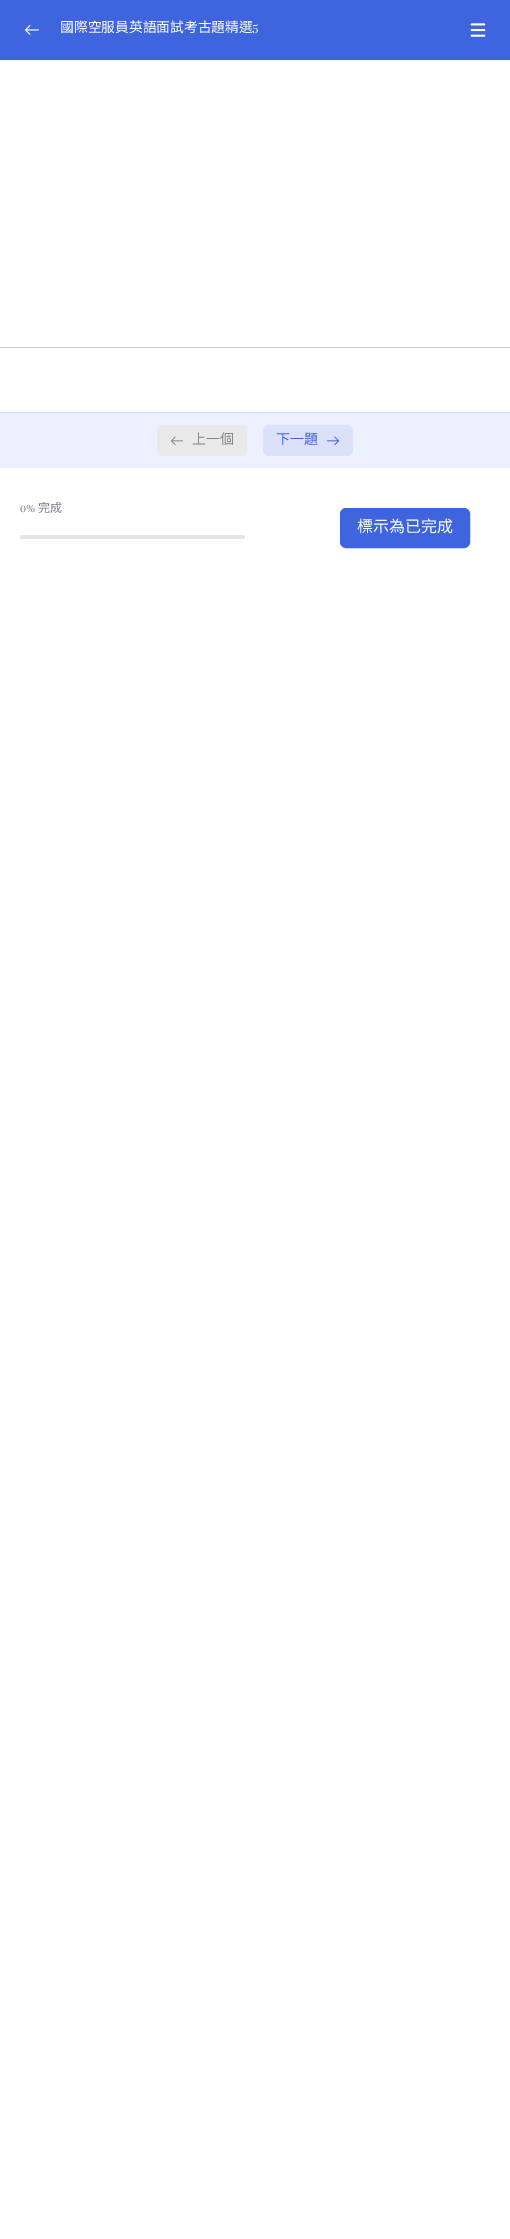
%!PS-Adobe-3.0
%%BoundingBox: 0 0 510 2239
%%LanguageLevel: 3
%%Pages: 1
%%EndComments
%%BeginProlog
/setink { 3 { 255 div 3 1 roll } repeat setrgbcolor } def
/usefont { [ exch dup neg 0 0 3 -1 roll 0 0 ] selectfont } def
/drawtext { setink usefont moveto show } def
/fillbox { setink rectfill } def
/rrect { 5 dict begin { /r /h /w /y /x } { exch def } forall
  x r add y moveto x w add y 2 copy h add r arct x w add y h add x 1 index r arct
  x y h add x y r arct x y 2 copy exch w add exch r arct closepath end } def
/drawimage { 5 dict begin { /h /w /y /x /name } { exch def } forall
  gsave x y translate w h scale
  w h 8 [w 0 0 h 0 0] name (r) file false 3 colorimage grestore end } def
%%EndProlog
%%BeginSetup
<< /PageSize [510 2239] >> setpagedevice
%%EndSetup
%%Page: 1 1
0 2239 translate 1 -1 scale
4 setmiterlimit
0 0 510 2239 255 255 255 fillbox
0 0 510 60 62 100 222 fillbox
(assets/img1.rgb) 25 25 14 10 drawimage
(國際空服員英語面試考古題精選) 60 32 /NotoSansCJKTC-Regular 13.75 255 255 255 drawtext
(5) 252 32 /AbhayaLibre-Regular 13.75 255 255 255 drawtext
(assets/img2.rgb) 470 23 16 14 drawimage
0 347 510 1 205 207 213 fillbox
0 413 510 55 236 239 252 fillbox
0 412 510 1 210 218 248 fillbox
233 233 234 setink
157 425 90 31 6 rrect fill
(assets/img3.rgb) 171 436 12 10 drawimage
(上一個) 192 444 /NotoSansCJKTC-Regular 14 133 134 137 drawtext
219 225 249 setink
263 425 90 31 6 rrect fill
(下一題) 276 444 /NotoSansCJKTC-Regular 14 62 100 222 drawtext
(assets/img4.rgb) 326 436 14 10 drawimage
(0%) 20 512 /AbhayaLibre-Regular 12 117 124 142 drawtext
(完成) 38 512 /NotoSansCJKTC-Regular 12 117 124 142 drawtext
227 229 235 setink
20 535 225 4 2 rrect fill
62 100 222 setink
340.5 508.5 129 39 5.5 rrect gsave fill grestore
stroke
(標示為已完成) 357 532 /NotoSansCJKTC-Regular 16 255 255 255 drawtext
showpage
%%EOF
